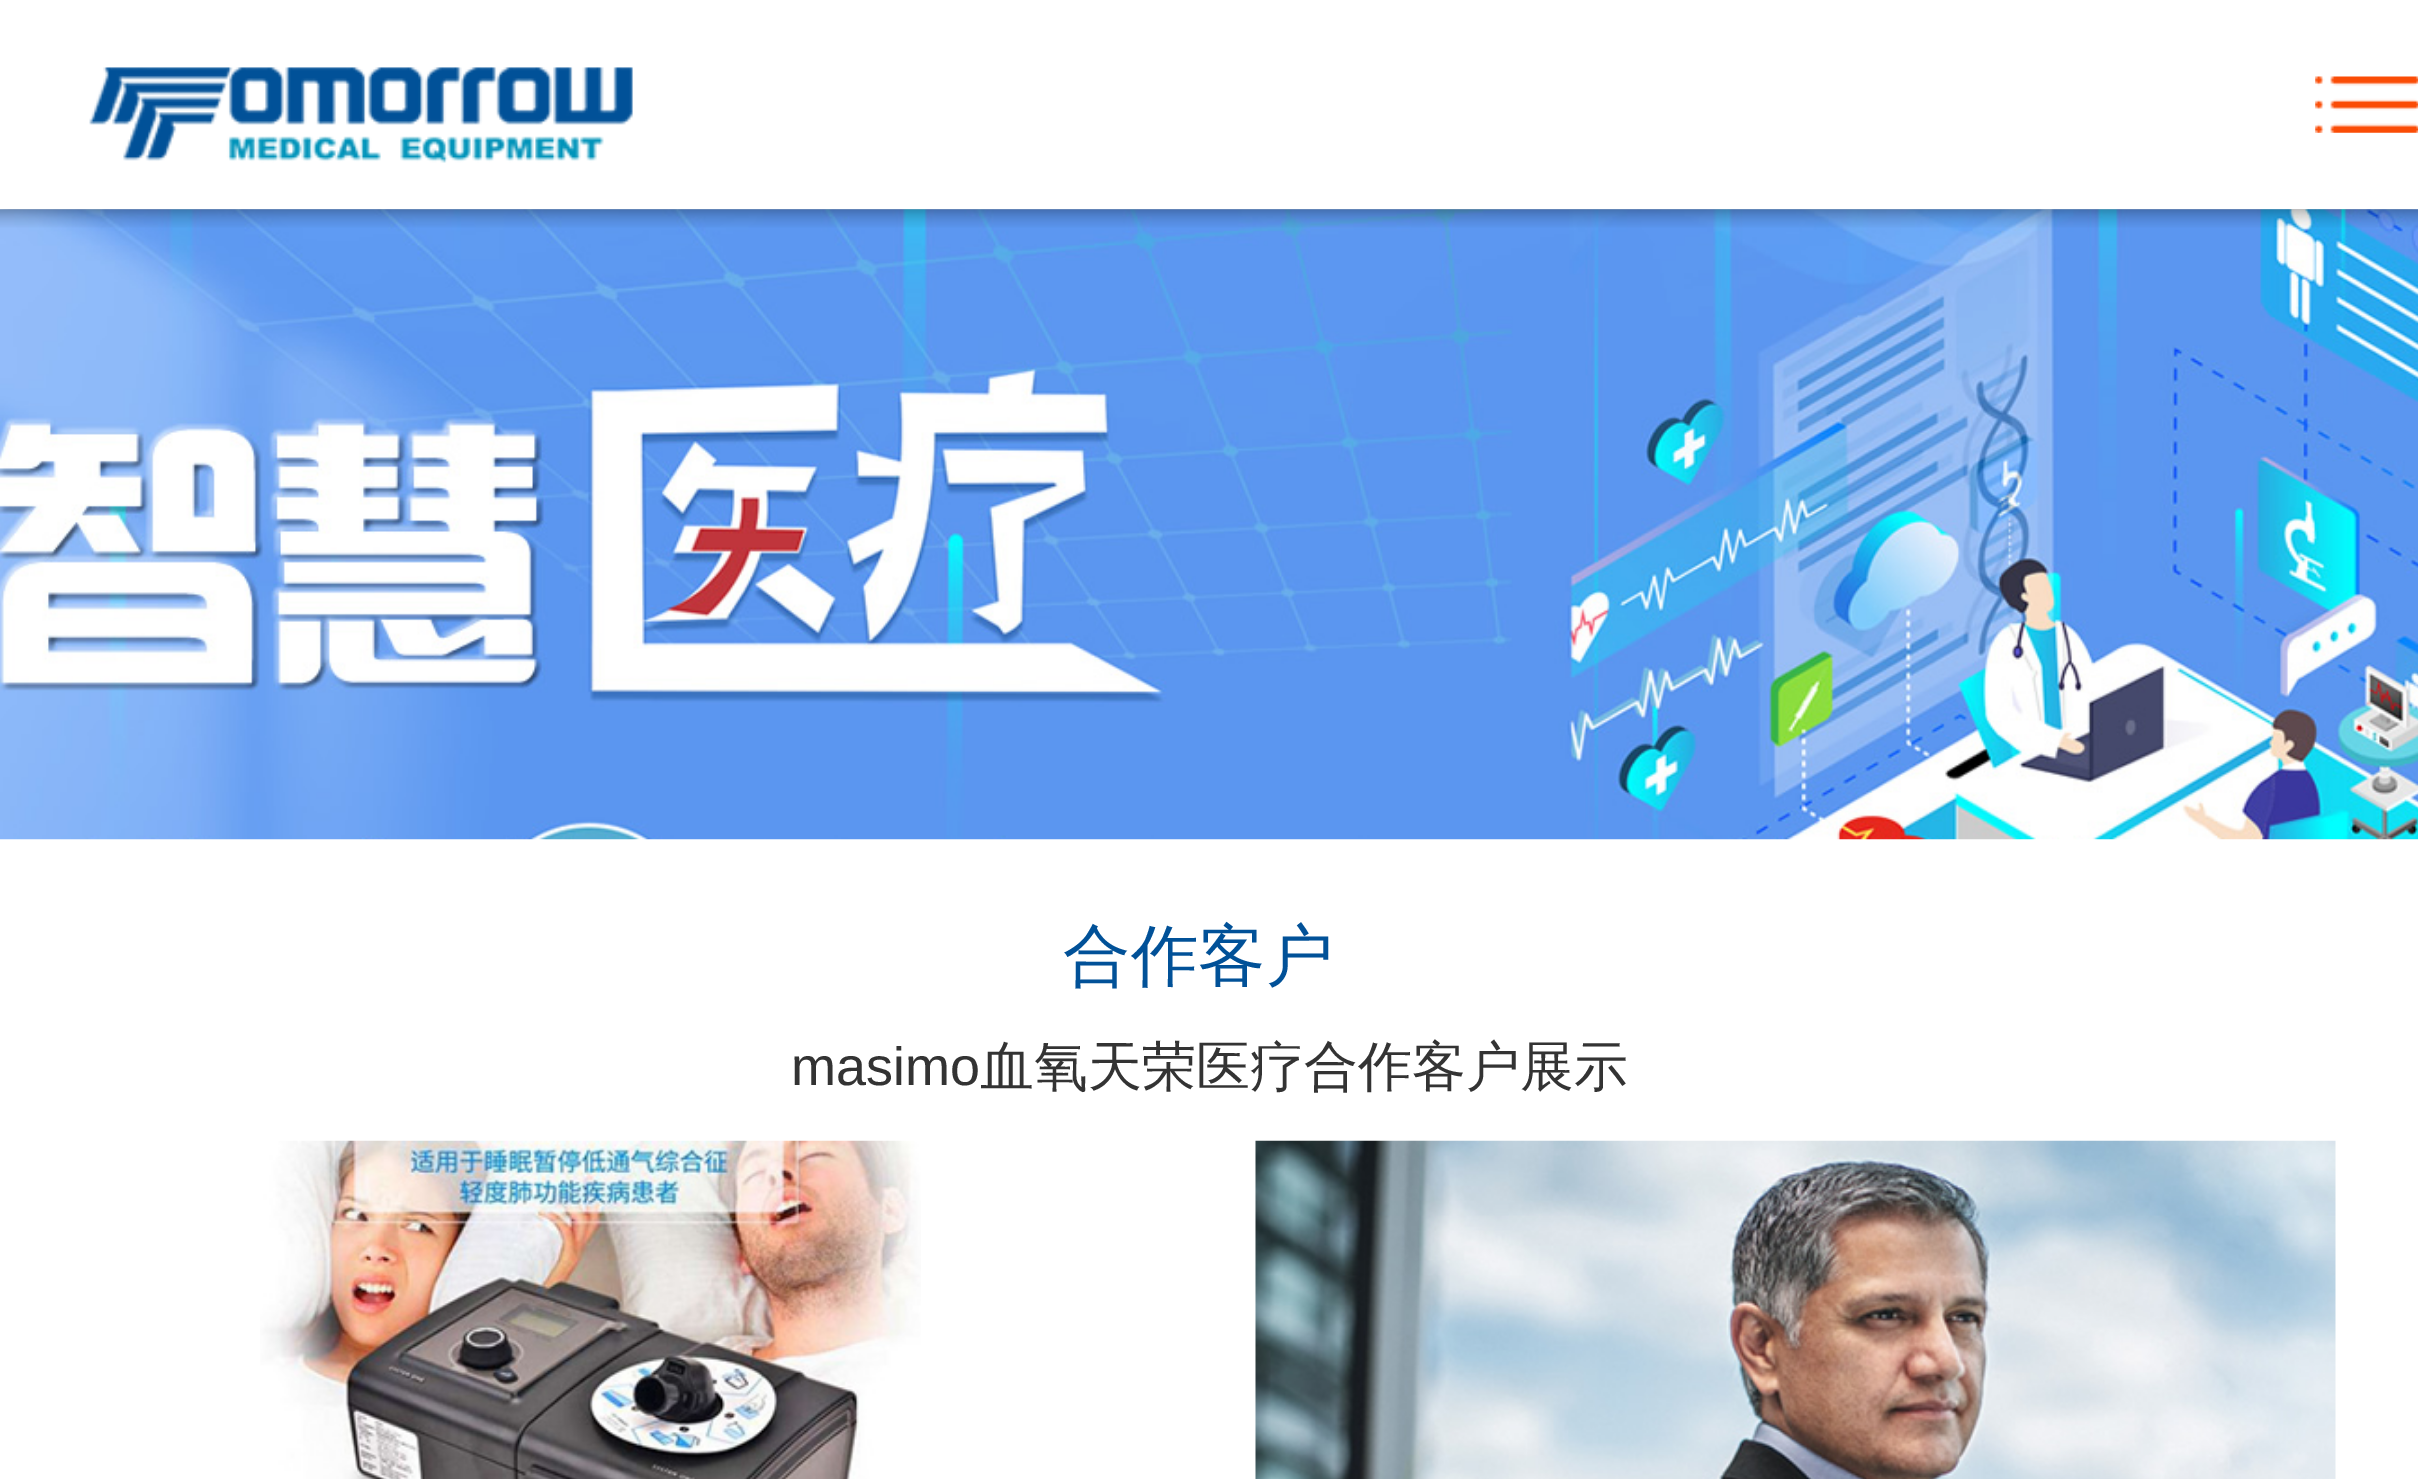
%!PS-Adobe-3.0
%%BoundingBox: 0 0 2418 1479
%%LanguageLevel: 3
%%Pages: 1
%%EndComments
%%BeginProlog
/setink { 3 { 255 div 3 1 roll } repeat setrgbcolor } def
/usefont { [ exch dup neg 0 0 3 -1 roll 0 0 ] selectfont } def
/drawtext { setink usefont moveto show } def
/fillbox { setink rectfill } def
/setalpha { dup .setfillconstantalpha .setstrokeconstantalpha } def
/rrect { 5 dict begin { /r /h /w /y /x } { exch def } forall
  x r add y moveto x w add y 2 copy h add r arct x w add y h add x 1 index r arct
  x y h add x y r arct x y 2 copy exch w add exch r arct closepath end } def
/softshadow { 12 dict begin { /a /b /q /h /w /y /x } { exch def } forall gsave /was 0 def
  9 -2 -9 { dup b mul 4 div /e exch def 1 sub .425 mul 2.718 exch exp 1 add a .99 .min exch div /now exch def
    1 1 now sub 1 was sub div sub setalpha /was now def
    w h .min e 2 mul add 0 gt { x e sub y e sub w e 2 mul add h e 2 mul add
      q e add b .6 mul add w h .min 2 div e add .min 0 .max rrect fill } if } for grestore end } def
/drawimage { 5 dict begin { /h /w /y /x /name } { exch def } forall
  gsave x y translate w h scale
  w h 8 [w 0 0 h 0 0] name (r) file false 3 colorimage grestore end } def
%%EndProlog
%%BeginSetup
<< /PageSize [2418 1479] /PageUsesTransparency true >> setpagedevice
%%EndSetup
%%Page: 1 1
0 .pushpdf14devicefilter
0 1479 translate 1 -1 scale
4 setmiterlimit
0 0 2418 1479 255 255 255 fillbox
gsave
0 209 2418 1 rectclip
0 0 0 setink
0 5 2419 209 0 5.5 0.4 softshadow
grestore
(assets/img1.rgb) 2315 76 103 57 drawimage
(assets/img2.rgb) 89 67 544 96 drawimage
(assets/img3.rgb) 0 209 2418 631 drawimage
(合作客户) 1063 979 /WenQuanYiZenHei-Medium 67.5 1 81 152 drawtext
(masimo) 791 1085 /LiberationSans-Regular 54 51 51 51 drawtext
(血氧天荣医疗合作客户展示) 980 1085 /WenQuanYiZenHei-Medium 54 51 51 51 drawtext
(assets/img4.rgb) 260 1140 661 339 drawimage
(assets/img5.rgb) 1255 1140 1081 339 drawimage
.poppdf14devicefilter showpage
%%EOF
